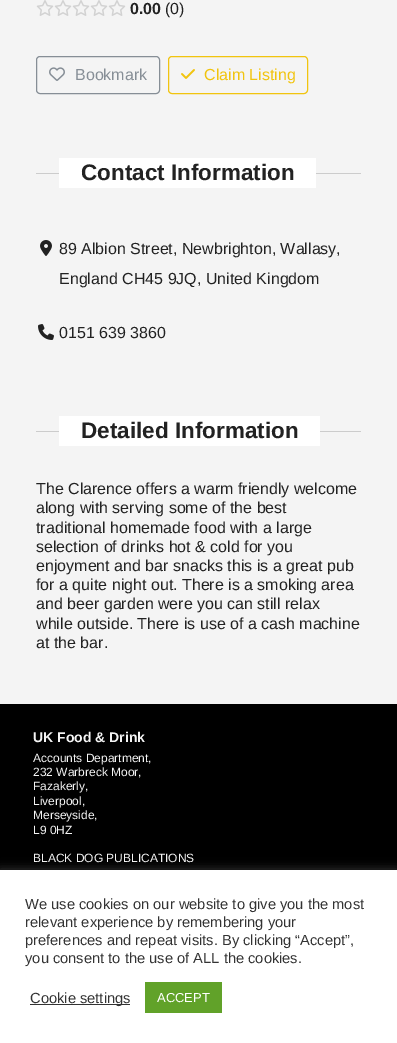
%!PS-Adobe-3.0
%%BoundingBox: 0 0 397 1043
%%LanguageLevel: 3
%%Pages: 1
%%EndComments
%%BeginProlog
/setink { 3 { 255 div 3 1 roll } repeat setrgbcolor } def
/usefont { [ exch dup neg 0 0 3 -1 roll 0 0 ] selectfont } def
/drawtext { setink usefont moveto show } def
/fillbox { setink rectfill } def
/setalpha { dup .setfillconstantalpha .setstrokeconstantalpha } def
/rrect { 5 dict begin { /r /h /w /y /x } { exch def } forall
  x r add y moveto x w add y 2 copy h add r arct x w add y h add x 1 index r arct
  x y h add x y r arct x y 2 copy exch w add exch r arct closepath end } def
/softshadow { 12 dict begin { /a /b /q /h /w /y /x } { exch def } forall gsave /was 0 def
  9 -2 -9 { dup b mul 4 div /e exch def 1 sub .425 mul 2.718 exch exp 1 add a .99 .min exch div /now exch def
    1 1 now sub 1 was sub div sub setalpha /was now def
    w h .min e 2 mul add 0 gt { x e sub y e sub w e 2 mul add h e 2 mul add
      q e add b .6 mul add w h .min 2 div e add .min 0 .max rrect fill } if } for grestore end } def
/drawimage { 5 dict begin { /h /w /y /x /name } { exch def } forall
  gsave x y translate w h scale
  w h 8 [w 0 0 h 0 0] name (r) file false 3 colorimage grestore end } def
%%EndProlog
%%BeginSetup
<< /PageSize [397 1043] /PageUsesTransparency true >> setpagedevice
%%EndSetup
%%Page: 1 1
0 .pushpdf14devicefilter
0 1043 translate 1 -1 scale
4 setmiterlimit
0 0 397 1043 244 244 244 fillbox
(assets/img1.rgb) 36 0 18 16 drawimage
(assets/img1.rgb) 54 0 18 16 drawimage
(assets/img1.rgb) 72 0 18 16 drawimage
(assets/img1.rgb) 90 0 18 16 drawimage
(assets/img1.rgb) 108 0 18 16 drawimage
(0.00) 130 14 /LiberationSans-Bold 16 34 34 34 drawtext
(\(0\)) 165 14 /LiberationSans-Regular 16 34 34 34 drawtext
134 142 150 setink
36.5 56.5 123 37 3.5 rrect stroke
(assets/img2.rgb) 49 67 16 14 drawimage
(Bookmark) 75 80 /LiberationSans-Regular 16 134 142 150 drawtext
241 196 15 setink
168.5 56.5 139 37 3.5 rrect stroke
(assets/img3.rgb) 181 69 14 10 drawimage
(Claim Listing) 204 80 /LiberationSans-Regular 16 241 196 15 drawtext
36 173 325 1 204 204 204 fillbox
59 158 257 30 255 255 255 fillbox
(Contact Information) 81 180 /LiberationSans-Bold 22.5 34 34 34 drawtext
(assets/img4.rgb) 40 240 12 16 drawimage
(89 Albion Street, Newbrighton, Wallasy,) 59 254 /LiberationSans-Regular 16 34 34 34 drawtext
(England CH45 9JQ, United Kingdom) 59 284 /LiberationSans-Regular 16 34 34 34 drawtext
(assets/img5.rgb) 38 324 16 16 drawimage
(0151 639 3860) 59 338 /LiberationSans-Regular 16 34 34 34 drawtext
36 431 325 1 204 204 204 fillbox
59 416 261 30 255 255 255 fillbox
(Detailed Information) 81 438 /LiberationSans-Bold 22.5 34 34 34 drawtext
(The Clarence offers a warm friendly welcome) 36 494 /LiberationSans-Regular 16 34 34 34 drawtext
(along with serving some of the best) 36 513 /LiberationSans-Regular 16 34 34 34 drawtext
(traditional homemade food with a large) 36 533 /LiberationSans-Regular 16 34 34 34 drawtext
(selection of drinks hot & cold for you) 36 552 /LiberationSans-Regular 16 34 34 34 drawtext
(enjoyment and bar snacks this is a great pub) 36 571 /LiberationSans-Regular 16 34 34 34 drawtext
(for a quite night out. There is a smoking area) 36 590 /LiberationSans-Regular 16 34 34 34 drawtext
(and beer garden were you can still relax) 36 609 /LiberationSans-Regular 16 34 34 34 drawtext
(while outside. There is use of a cash machine) 36 629 /LiberationSans-Regular 16 34 34 34 drawtext
(at the bar.) 36 648 /LiberationSans-Regular 16 34 34 34 drawtext
0 704 397 166 0 0 0 fillbox
(UK Food & Drink) 33 742 /LiberationSans-Bold 14 244 244 244 drawtext
(Accounts Department,) 33 762 /LiberationSans-Regular 12 244 244 244 drawtext
(232 Warbreck Moor,) 33 776 /LiberationSans-Regular 12 244 244 244 drawtext
(Fazakerly,) 33 790 /LiberationSans-Regular 12 244 244 244 drawtext
(Liverpool,) 33 805 /LiberationSans-Regular 12 244 244 244 drawtext
(Merseyside,) 33 819 /LiberationSans-Regular 12 244 244 244 drawtext
(L9 0HZ) 33 834 /LiberationSans-Regular 12 244 244 244 drawtext
(BLACK DOG PUBLICATIONS) 33 862 /LiberationSans-Regular 12 244 244 244 drawtext
172 171 171 setink
0 869 397 173 0 5 0.3 softshadow
0 870 397 173 255 255 255 fillbox
(We use cookies on our website to give you the most) 25 909 /LiberationSans-Regular 14.7 51 51 51 drawtext
(relevant experience by remembering your) 25 927 /LiberationSans-Regular 14.7 51 51 51 drawtext
(preferences and repeat visits. By clicking “Accept”,) 25 945 /LiberationSans-Regular 14.7 51 51 51 drawtext
(you consent to the use of ALL the cookies.) 25 963 /LiberationSans-Regular 14.7 51 51 51 drawtext
30 1004 100 1 51 51 51 fillbox
(Cookie settings) 30 1003 /LiberationSans-Regular 14.7 51 51 51 drawtext
145 982 77 31 97 162 41 fillbox
(ACCEPT) 157 1002 /LiberationSans-Regular 13 255 255 255 drawtext
.poppdf14devicefilter showpage
%%EOF
